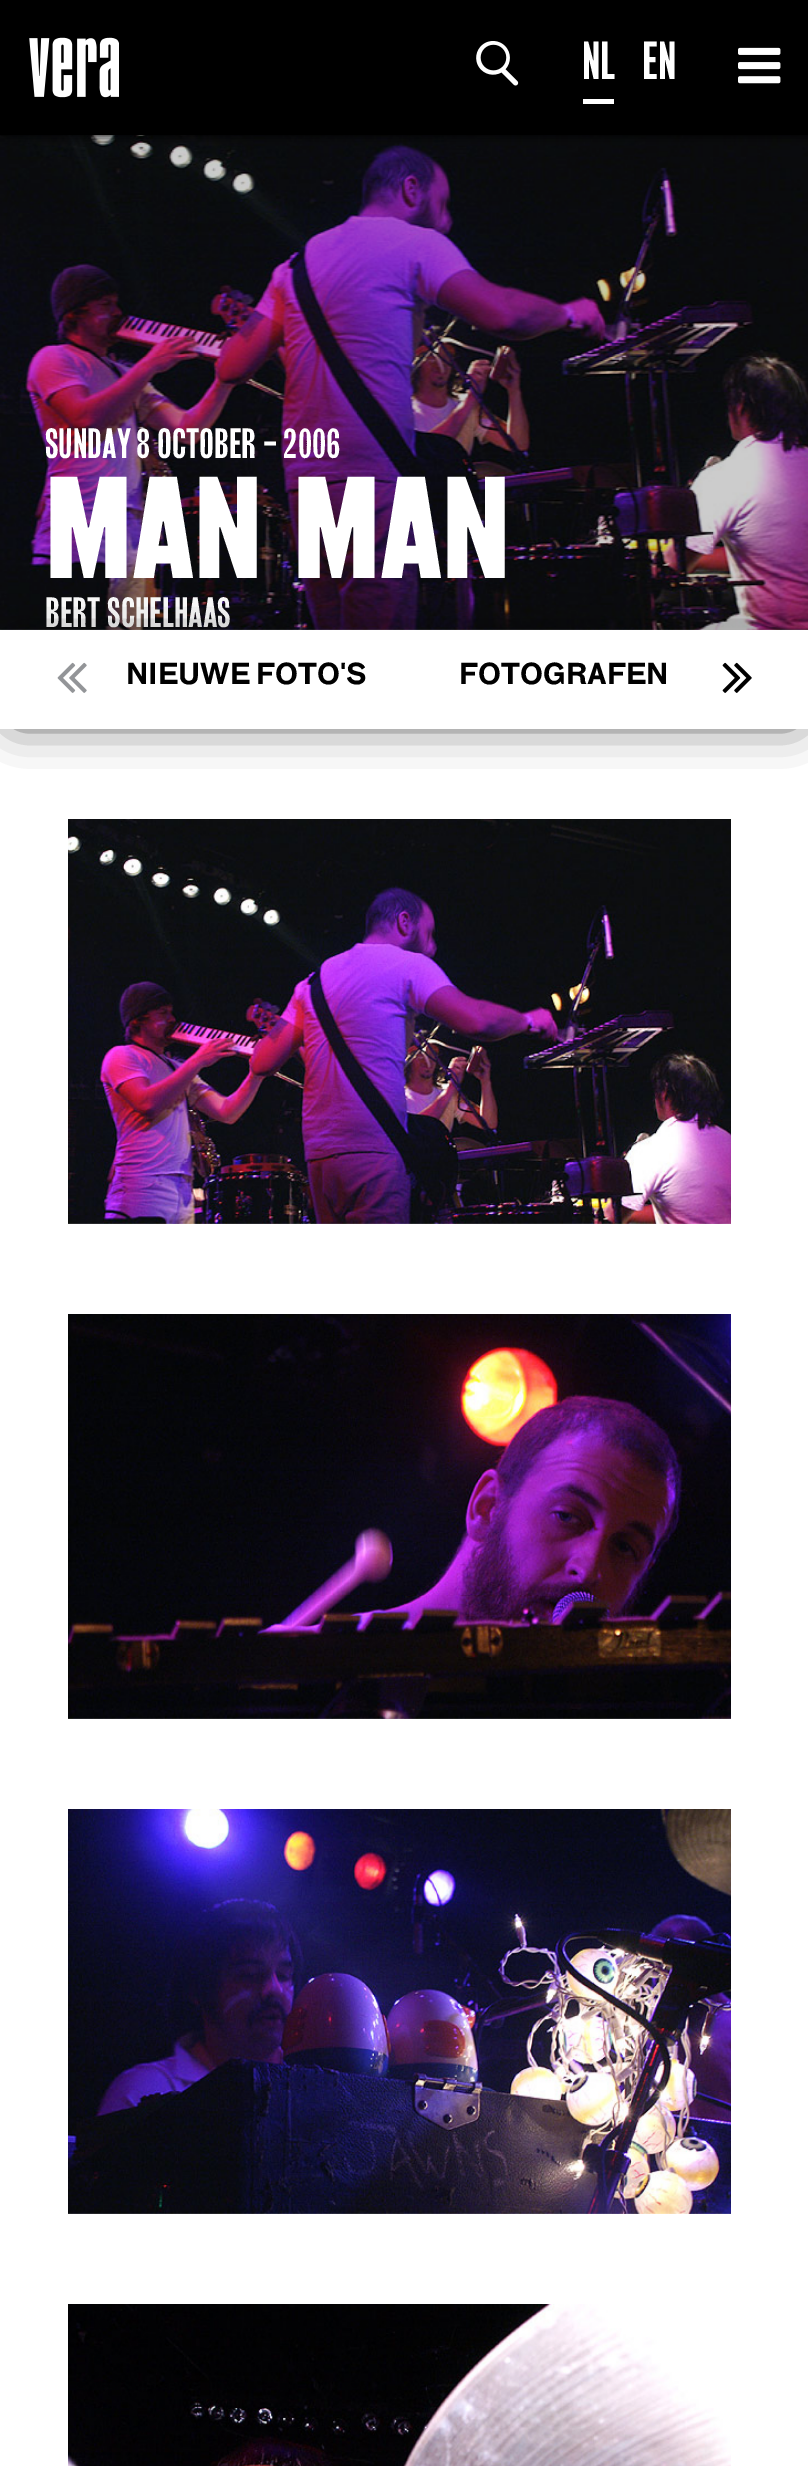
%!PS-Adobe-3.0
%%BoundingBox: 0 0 808 2466
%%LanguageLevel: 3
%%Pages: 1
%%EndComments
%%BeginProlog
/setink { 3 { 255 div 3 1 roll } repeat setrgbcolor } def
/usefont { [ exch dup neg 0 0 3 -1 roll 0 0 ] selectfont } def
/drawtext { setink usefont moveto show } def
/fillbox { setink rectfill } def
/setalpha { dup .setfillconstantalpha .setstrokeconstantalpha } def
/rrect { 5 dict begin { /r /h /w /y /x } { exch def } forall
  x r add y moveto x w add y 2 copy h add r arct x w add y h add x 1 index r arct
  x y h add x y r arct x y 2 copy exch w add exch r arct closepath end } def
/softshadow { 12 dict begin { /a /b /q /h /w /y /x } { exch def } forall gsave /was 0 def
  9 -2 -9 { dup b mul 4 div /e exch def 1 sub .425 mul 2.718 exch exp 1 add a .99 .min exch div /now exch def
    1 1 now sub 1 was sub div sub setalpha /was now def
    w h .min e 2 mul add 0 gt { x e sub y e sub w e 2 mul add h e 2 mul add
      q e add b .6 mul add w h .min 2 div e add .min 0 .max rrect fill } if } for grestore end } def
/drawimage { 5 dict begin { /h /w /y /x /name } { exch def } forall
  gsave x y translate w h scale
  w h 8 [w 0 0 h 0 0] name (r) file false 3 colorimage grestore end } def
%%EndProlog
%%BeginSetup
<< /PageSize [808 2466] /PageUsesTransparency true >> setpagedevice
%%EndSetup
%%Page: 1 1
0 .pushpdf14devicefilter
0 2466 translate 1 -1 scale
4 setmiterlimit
0 0 808 2466 255 255 255 fillbox
(assets/img4.rgb) 0 135 808 495 drawimage
0 0 0 setink
0 0 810 135 0 5.5 1 softshadow
0 0 808 135 0 0 0 fillbox
(assets/img1.rgb) 29 37 90 61 drawimage
(assets/img2.rgb) 476 41 43 45 drawimage
(NL) 582 79 /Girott-Regular 50 255 255 255 drawtext
583 99 31 5 255 255 255 fillbox
(EN) 642 79 /Girott-Regular 50 255 255 255 drawtext
(assets/img3.rgb) 738 47 43 37 drawimage
(SUNDAY) 45 458 /Girott-Regular 39.5 255 255 255 drawtext
136 458 moveto -0.5 0 32 (8 OCTOBER - 2006) widthshow
(MAN MAN) 45 578 /Girott-Bold 135 255 255 255 drawtext
(BERT SCHELHAAS) 45 627 /Girott-Regular 39.5 255 255 255 drawtext
gsave
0 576 moveto 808 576 lineto 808 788 lineto 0 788 lineto closepath 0 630 moveto 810 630 lineto 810 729 lineto 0 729 lineto closepath eoclip newpath
0 0 0 setink
16 648 778 68 0 23.5 1 softshadow
grestore
(assets/img5.rgb) 57 662 30 31 drawimage
/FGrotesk-Bold 29.25 usefont
0 0 0 setink
126 684 moveto -1 0 32 (NIEUWE FOTO'S) widthshow
(FOTOGRAFEN) 459 684 /FGrotesk-Bold 29.25 0 0 0 drawtext
(assets/img6.rgb) 722 662 30 31 drawimage
(assets/img7.rgb) 68 819 663 405 drawimage
(assets/img8.rgb) 68 1314 663 405 drawimage
(assets/img9.rgb) 68 1809 663 405 drawimage
(assets/img10.rgb) 68 2304 663 162 drawimage
.poppdf14devicefilter showpage
%%EOF
